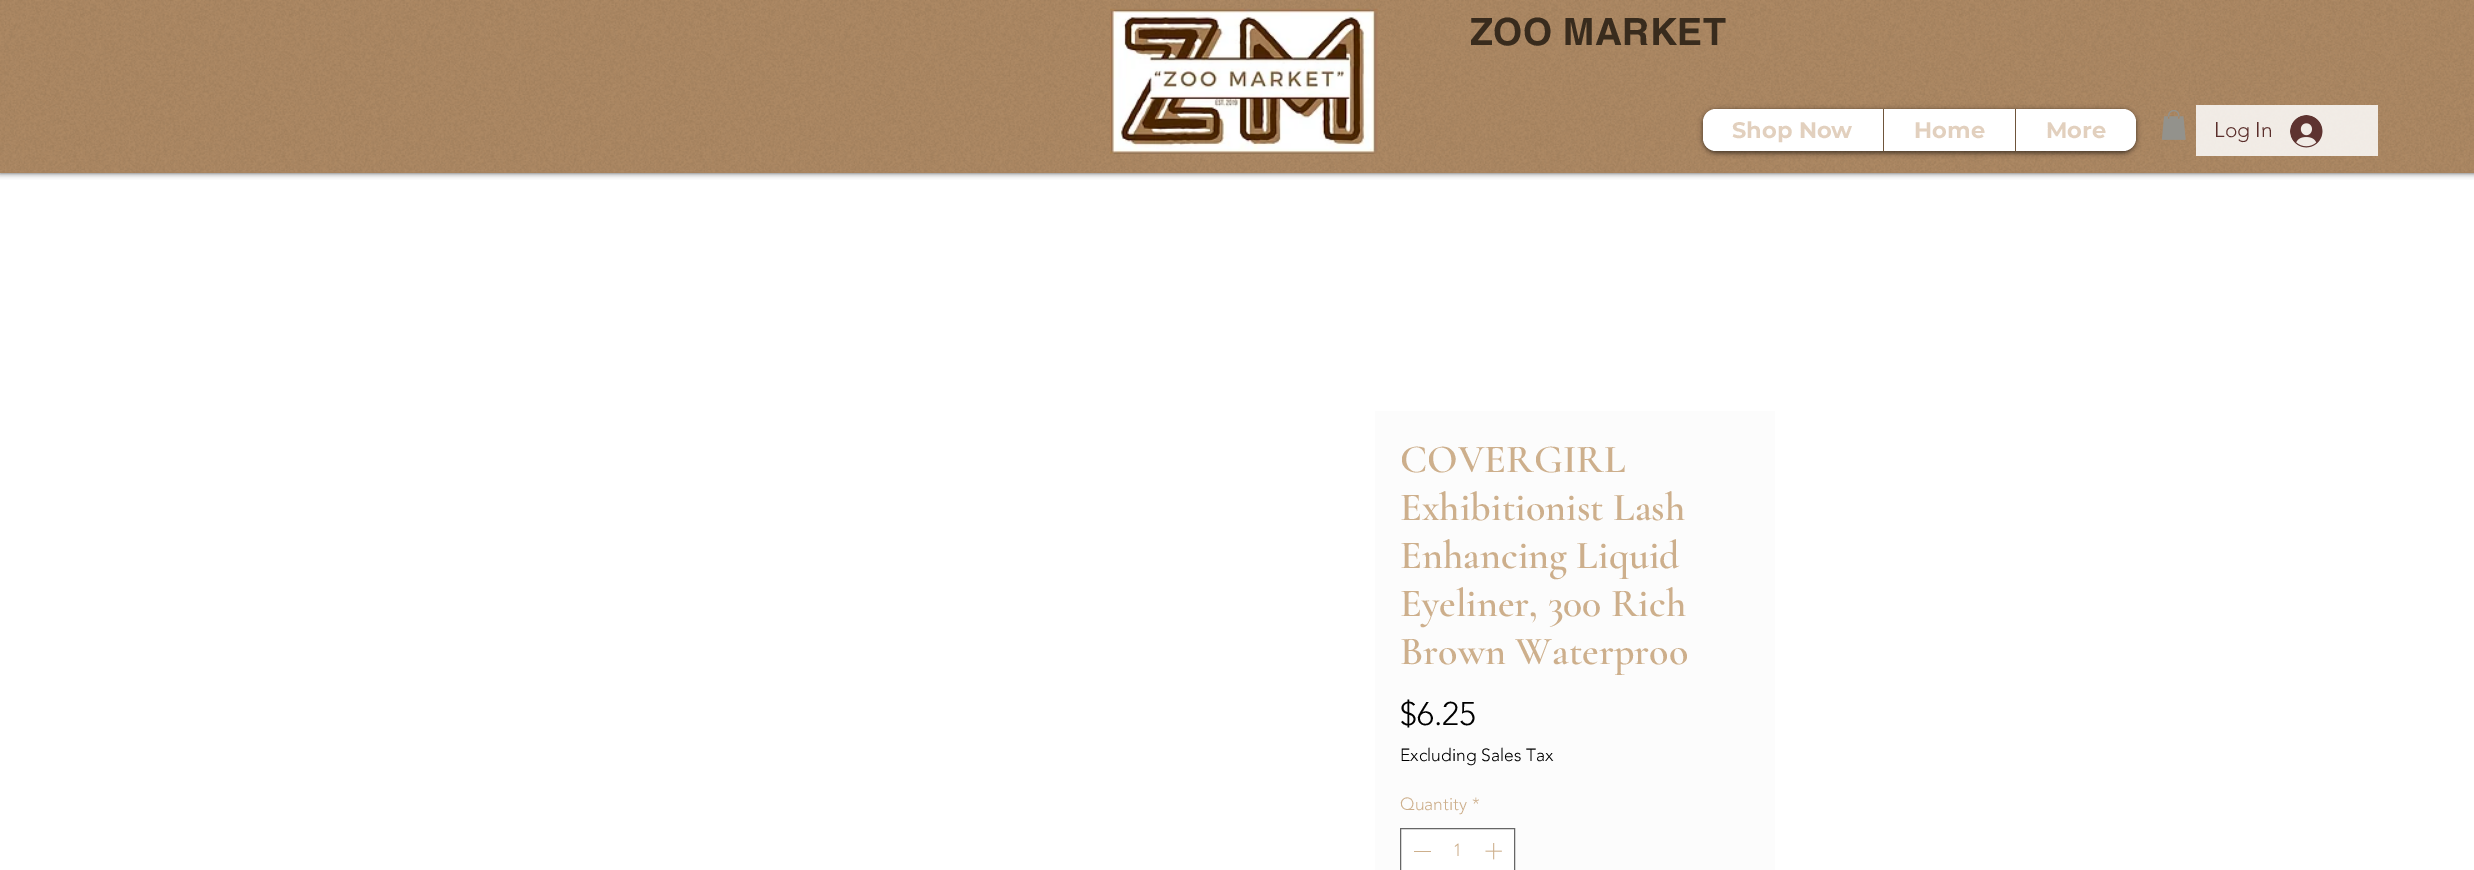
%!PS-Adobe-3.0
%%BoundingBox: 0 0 2474 870
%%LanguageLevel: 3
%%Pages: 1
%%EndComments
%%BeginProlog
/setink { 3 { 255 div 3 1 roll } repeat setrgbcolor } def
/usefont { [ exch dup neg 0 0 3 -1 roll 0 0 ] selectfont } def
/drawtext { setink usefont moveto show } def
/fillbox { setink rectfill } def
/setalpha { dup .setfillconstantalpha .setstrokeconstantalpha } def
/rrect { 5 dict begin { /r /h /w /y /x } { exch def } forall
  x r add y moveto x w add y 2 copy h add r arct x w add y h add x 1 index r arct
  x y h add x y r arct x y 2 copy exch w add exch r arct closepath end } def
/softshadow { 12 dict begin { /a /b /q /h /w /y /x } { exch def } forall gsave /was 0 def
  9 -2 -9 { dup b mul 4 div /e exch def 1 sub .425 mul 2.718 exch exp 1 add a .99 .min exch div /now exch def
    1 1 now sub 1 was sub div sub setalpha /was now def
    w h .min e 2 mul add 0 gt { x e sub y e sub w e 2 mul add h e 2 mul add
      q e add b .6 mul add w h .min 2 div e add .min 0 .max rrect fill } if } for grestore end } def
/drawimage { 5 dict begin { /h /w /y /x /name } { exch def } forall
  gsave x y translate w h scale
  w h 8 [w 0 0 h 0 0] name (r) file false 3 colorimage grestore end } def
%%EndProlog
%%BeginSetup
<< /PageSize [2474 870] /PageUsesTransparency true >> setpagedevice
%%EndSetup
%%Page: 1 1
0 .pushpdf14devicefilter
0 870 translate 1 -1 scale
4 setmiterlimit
0 0 2474 870 255 255 255 fillbox
gsave
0 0 moveto 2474 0 lineto 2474 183 lineto 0 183 lineto closepath 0 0 moveto 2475 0 lineto 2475 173 lineto 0 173 lineto closepath eoclip newpath
0 0 0 setink
0 0 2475 173 0 3 0.7 softshadow
grestore
0.94 setalpha
0 0 2474 173 167 128 88 fillbox
1 setalpha
(assets/img1.rgb) 0 0 2474 173 drawimage
(assets/img2.rgb) 1110 8 268 146 drawimage
/helvetica-Bold 37.5 usefont
56 43 29 setink
1470 45 moveto 0.4 0 (ZOO MARKET) ashow
0 0 0 setink
1703 110 433 43 13 2.5 0.6 softshadow
255 255 255 setink
1703 109 433 42 13 rrect fill
(Shop Now) 1732 138 /Montserrat-Bold 22.5 226 208 190 drawtext
1883 109 1 42 111 85 59 fillbox
(Home) 1914 138 /Montserrat-Bold 22.5 226 208 190 drawtext
2015 109 1 42 111 85 59 fillbox
(More) 2046 138 /Montserrat-Bold 22.5 226 208 190 drawtext
(assets/img3.rgb) 2162 110 24 30 drawimage
0.84 setalpha
2196 105 182 51 255 255 255 fillbox
1 setalpha
(Log In) 2214 137 /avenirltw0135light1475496-Light 21 91 47 44 drawtext
(assets/img4.rgb) 2290 115 33 33 drawimage
1375 411 400 459 252 252 252 fillbox
(COVERGIRL) 1400 472 /CormorantGaramond-SemiBold 40 205 175 140 drawtext
(Exhibitionist Lash) 1400 520 /CormorantGaramond-SemiBold 40 205 175 140 drawtext
(Enhancing Liquid) 1400 568 /CormorantGaramond-SemiBold 40 205 175 140 drawtext
(Eyeliner, 300 Rich) 1400 616 /CormorantGaramond-SemiBold 40 205 175 140 drawtext
(Brown Waterproo) 1400 664 /CormorantGaramond-SemiBold 40 205 175 140 drawtext
($6.25) 1400 725 /avenirltw0135light1475496-Light 32.5 0 0 0 drawtext
(Excluding Sales Tax) 1400 761 /avenirltw0135light1475496-Light 17.5 0 0 0 drawtext
(Quantity) 1400 810 /avenirltw0135light1475496-Light 17.5 205 175 140 drawtext
(*) 1472 810 /avenirltw0135light1475496-Light 17.5 205 175 140 drawtext
255 255 255 setink
1400.5 828.5 moveto 1514.5 828.5 lineto 1514.5 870.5 lineto 1400.5 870.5 lineto closepath gsave fill grestore
102 102 102 setink
stroke
1414 851 17 1 205 175 140 fillbox
(1) 1453 856 /avenirltw0135light1475496-Light 17.5 205 175 140 drawtext
(assets/img5.rgb) 1485 843 17 17 drawimage
.poppdf14devicefilter showpage
%%EOF
